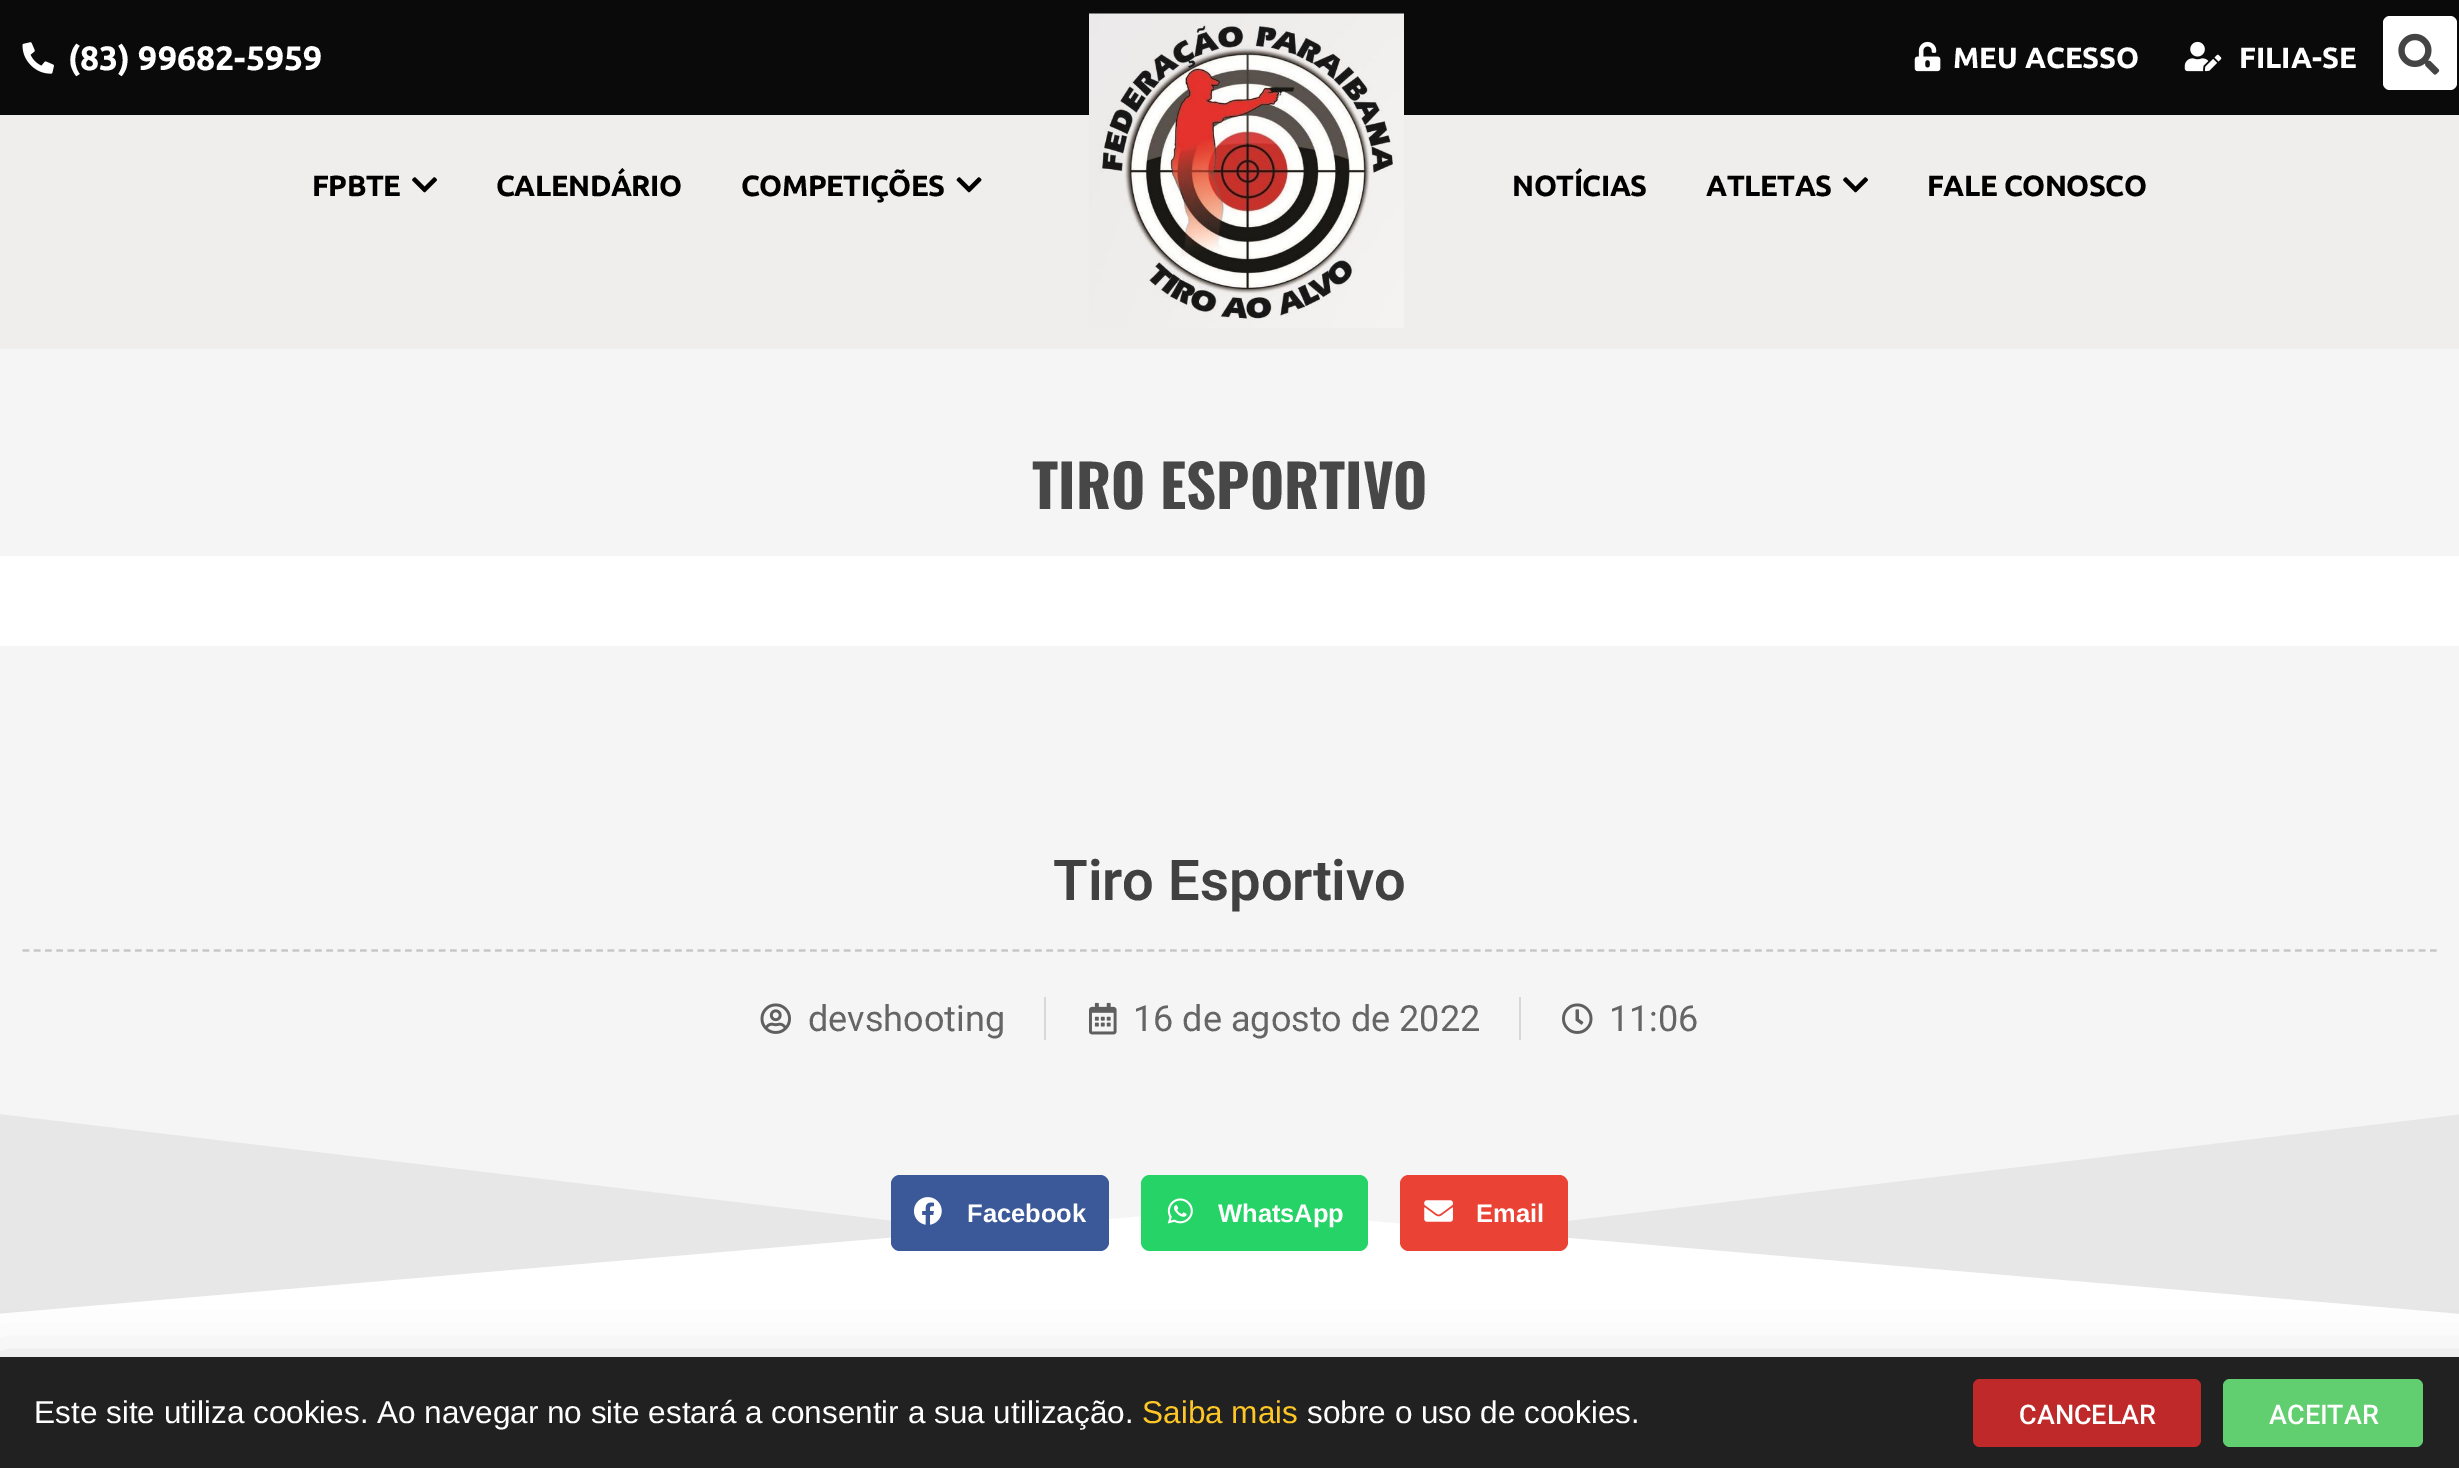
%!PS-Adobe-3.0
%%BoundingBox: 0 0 2459 1468
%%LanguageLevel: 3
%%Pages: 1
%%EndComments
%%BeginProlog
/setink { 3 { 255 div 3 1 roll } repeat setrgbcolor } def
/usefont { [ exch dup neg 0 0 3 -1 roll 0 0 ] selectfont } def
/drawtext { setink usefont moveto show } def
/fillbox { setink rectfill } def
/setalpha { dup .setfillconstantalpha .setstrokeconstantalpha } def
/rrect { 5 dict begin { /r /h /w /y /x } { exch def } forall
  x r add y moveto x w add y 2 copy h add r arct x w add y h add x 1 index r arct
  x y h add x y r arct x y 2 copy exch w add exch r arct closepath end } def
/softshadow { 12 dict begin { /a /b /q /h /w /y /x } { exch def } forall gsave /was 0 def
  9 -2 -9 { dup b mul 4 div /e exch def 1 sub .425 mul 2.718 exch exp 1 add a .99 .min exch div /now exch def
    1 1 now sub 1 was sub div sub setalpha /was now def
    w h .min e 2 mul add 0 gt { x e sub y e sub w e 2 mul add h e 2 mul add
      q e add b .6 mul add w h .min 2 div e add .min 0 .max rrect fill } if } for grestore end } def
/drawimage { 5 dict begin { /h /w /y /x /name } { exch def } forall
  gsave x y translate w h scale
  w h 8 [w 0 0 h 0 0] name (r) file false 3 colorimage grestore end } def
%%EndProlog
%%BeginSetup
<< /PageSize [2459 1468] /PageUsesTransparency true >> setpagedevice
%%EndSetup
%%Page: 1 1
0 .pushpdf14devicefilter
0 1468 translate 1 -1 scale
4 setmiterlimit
0 0 2459 1468 255 255 255 fillbox
0 0 2459 115 10 10 10 fillbox
(assets/img1.rgb) 22 42 32 32 drawimage
(\(83\) 99682-5959) 68 70 /Ubuntu-Bold 33.75 255 255 255 drawtext
(assets/img2.rgb) 1914 41 27 31 drawimage
(MEU ACESSO) 1953 68 /Ubuntu-Bold 29.25 255 255 255 drawtext
(assets/img3.rgb) 2184 41 38 31 drawimage
(FILIA-SE) 2239 68 /Ubuntu-Bold 29.25 255 255 255 drawtext
2383 16 74 74 7 rrect fill
(assets/img4.rgb) 2398 33 42 42 drawimage
0 115 2459 234 240 238 236 fillbox
0 0 0 setink
312 196 moveto -0.5 0 (FPBTE) ashow
(assets/img5.rgb) 412 177 25 16 drawimage
496 196 moveto -0.5 0 (CALENDÁRIO) ashow
741 196 moveto -0.5 0 (COMPETIÇÕES) ashow
(assets/img6.rgb) 956 177 26 16 drawimage
(assets/img7.rgb) 1089 13 315 315 drawimage
1512 196 moveto -0.5 0 (NOTÍCIAS) ashow
1706 196 moveto -0.5 0 (ATLETAS) ashow
(assets/img5.rgb) 1843 177 25 16 drawimage
1927 196 moveto -0.5 0 (FALE CONOSCO) ashow
0 349 2459 207 245 245 245 fillbox
(TIRO ESPORTIVO) 1032 509 /Oswald-Bold 58.5 71 71 71 drawtext
0 646 2459 459 245 245 245 fillbox
198 198 198 setink
2.2 setlinewidth
[6.75 4.5] 0 setdash
22.5 950.5 moveto 2437 950.5 lineto stroke
(Tiro Esportivo) 1053 900 /Roboto-SemiBold 56.25 65 65 65 drawtext
(assets/img8.rgb) 760 1003 31 31 drawimage
(devshooting) 808 1031 /Roboto-Regular 36 101 101 101 drawtext
1044 997 2 43 216 216 216 fillbox
(assets/img9.rgb) 1089 1002 28 33 drawimage
(16 de agosto de 2022) 1133 1031 /Roboto-Regular 36 101 101 101 drawtext
1519 997 2 43 216 216 216 fillbox
(assets/img10.rgb) 1562 1003 31 31 drawimage
(11:06) 1609 1031 /Roboto-Regular 36 101 101 101 drawtext
0 1114 2459 200 231 231 231 fillbox
245 245 245 setink
1231 1261 moveto 0 1114 lineto 0 1105 lineto 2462 1105 lineto 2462 1114 lineto closepath fill
255 255 255 setink
1228 1209 moveto 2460 1314 lineto 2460 1321 lineto -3 1321 lineto -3 1314 lineto closepath fill
59 89 152 setink
891 1175 218 76 9 rrect fill
(assets/img11.rgb) 913 1197 29 28 drawimage
(Facebook) 967 1222 /LiberationSans-Bold 25.5 255 255 255 drawtext
37 211 102 setink
1141 1175 227 76 9 rrect fill
(assets/img12.rgb) 1167 1198 26 26 drawimage
(WhatsApp) 1218 1222 /LiberationSans-Bold 25.5 255 255 255 drawtext
234 67 53 setink
1400 1175 168 76 9 rrect fill
(assets/img13.rgb) 1424 1200 29 22 drawimage
(Email) 1476 1222 /LiberationSans-Bold 25.5 255 255 255 drawtext
0 0 0 setink
-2 1368 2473 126 0 26 0.2 softshadow
0 1357 2459 111 33 33 33 fillbox
(Este site utiliza cookies. Ao navegar no site estará a consentir a sua utilização.) 34 1423 /LiberationSans-Regular 31.5 255 255 255 drawtext
(Saiba mais) 1142 1423 /LiberationSans-Regular 31.5 254 199 38 drawtext
(sobre o uso de cookies.) 1307 1423 /LiberationSans-Regular 31.5 255 255 255 drawtext
191 41 41 setink
1973 1379 228 68 7 rrect fill
(CANCELAR) 2019 1424 /Roboto-Medium 27 255 255 255 drawtext
97 206 112 setink
2223 1379 200 68 7 rrect fill
(ACEITAR) 2269 1424 /Roboto-Medium 27 255 255 255 drawtext
.poppdf14devicefilter showpage
%%EOF
